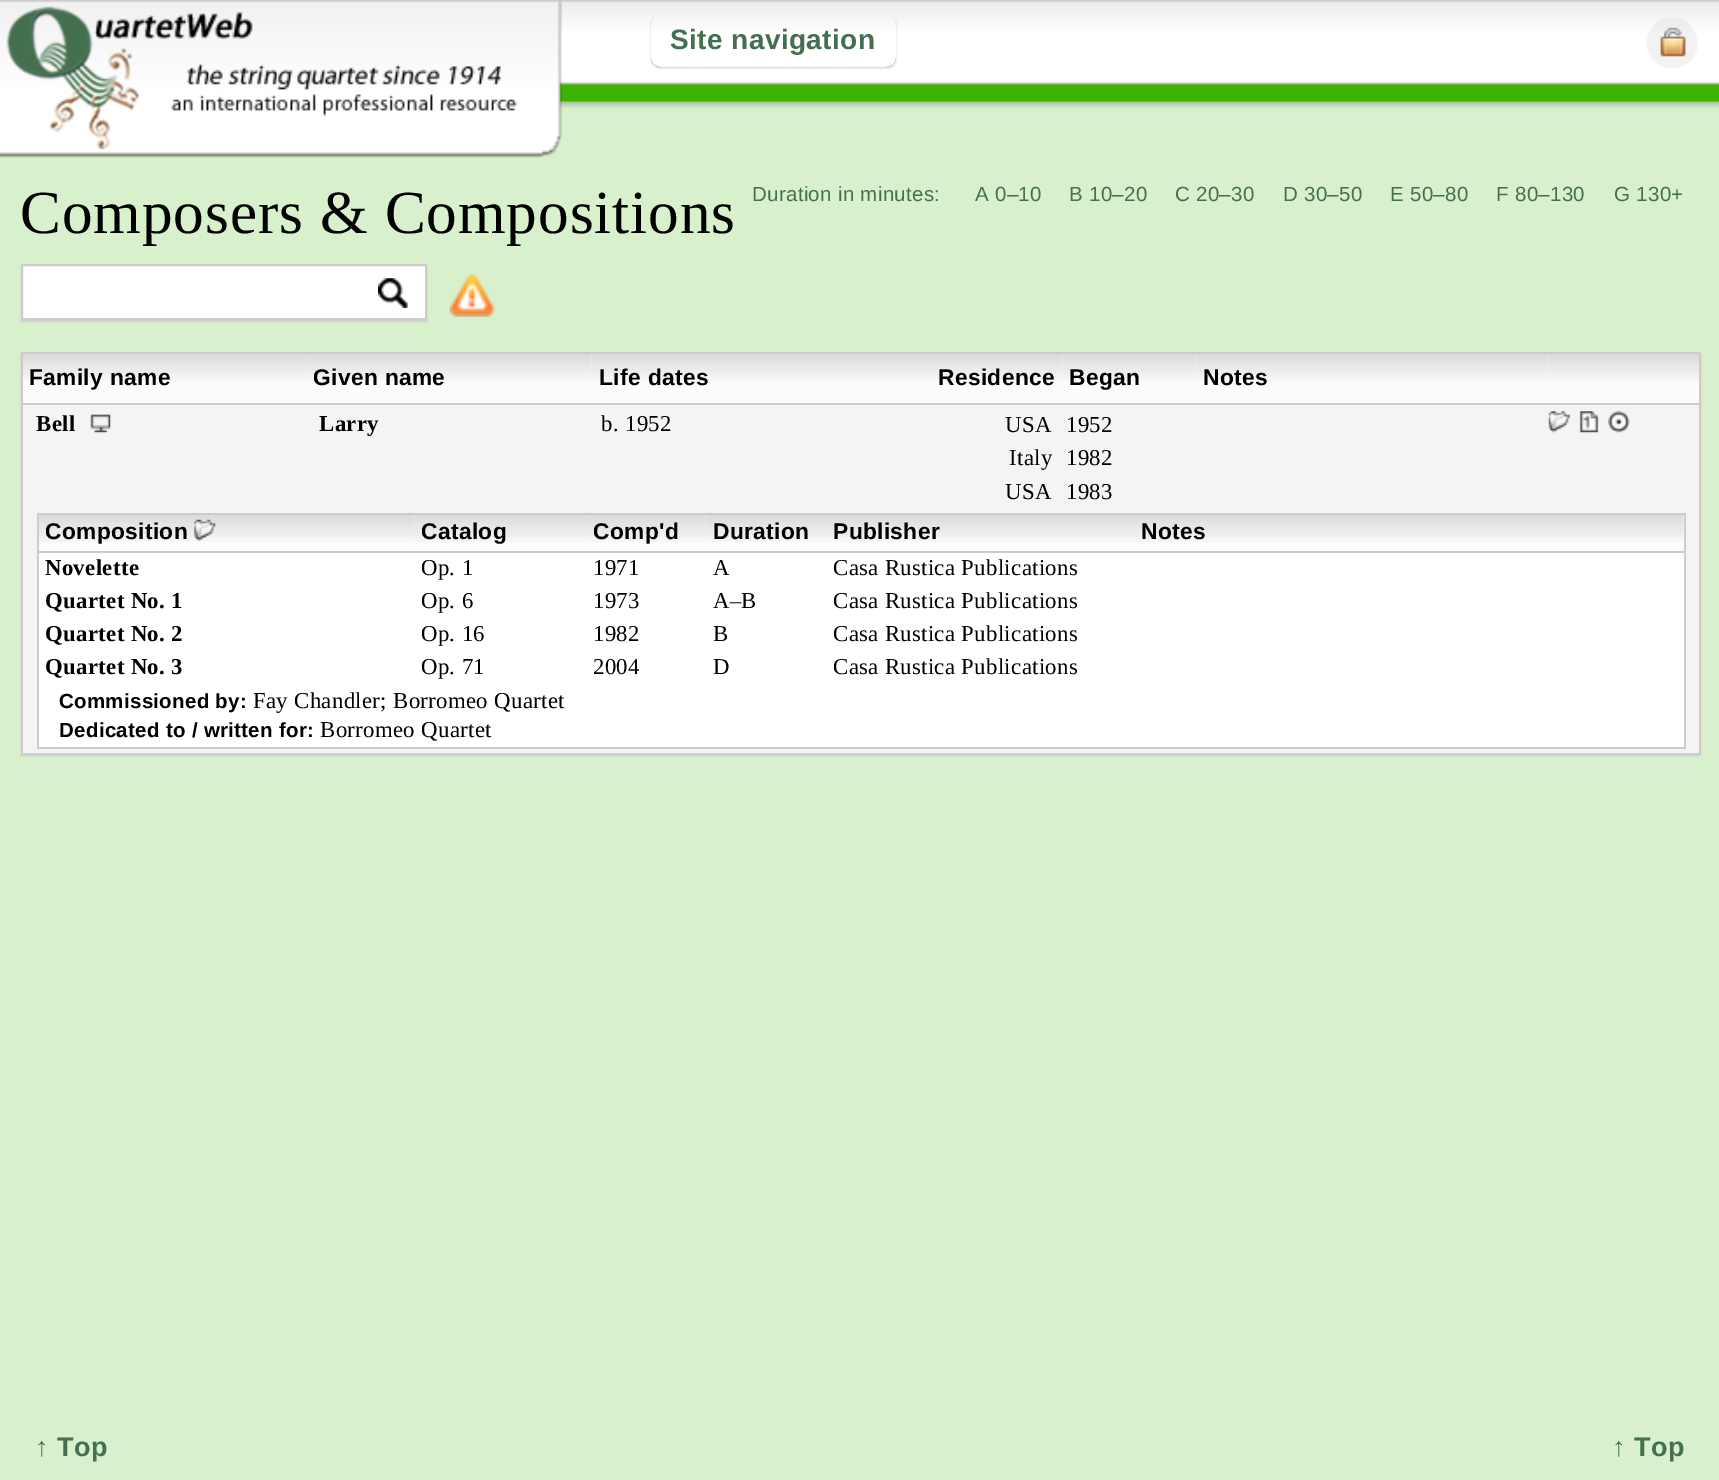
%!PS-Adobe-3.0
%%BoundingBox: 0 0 1719 1480
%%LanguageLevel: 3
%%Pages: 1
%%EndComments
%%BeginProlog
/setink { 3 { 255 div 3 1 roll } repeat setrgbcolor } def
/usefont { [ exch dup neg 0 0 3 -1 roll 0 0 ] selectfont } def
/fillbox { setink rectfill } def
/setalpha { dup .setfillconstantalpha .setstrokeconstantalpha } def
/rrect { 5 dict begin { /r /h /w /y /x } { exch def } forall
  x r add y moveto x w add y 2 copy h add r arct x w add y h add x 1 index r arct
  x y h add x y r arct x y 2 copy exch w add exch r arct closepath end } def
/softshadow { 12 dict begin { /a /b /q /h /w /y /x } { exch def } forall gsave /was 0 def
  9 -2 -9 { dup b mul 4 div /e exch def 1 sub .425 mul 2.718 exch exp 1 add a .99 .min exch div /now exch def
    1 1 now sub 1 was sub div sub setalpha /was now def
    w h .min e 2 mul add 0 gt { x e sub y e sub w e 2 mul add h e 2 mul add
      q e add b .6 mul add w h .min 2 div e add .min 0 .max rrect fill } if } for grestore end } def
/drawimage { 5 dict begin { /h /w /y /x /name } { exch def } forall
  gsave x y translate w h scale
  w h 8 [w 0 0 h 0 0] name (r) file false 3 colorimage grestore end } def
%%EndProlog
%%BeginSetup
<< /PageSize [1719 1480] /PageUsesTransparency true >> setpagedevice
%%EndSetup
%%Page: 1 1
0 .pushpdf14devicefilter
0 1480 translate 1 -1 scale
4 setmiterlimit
0 0 1719 1480 216 240 204 fillbox
(assets/img1.rgb) 559 0 1160 108 drawimage
(assets/img2.rgb) 0 0 562 158 drawimage
gsave
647 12 moveto 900 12 lineto 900 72 lineto 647 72 lineto closepath 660 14 moveto 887 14 lineto 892 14 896 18 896 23 curveto 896 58 lineto 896 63 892 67 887 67 curveto 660 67 lineto 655 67 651 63 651 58 curveto 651 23 lineto 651 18 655 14 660 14 curveto closepath eoclip newpath
204 204 204 setink
651 16 245 52 9 1 1 softshadow
grestore
/LiberationSans-Bold 28 usefont
69 112 80 setink
670 49 moveto 0.4 0 (Site navigation) ashow
(assets/img3.rgb) 1646 17 52 52 drawimage
204 204 204 setink
21 354 1680 402 0 1 1 softshadow
/LiberationSans-Regular 20.5 usefont
69 112 80 setink
752 201 moveto 0.3 0 (Duration in minutes:) ashow
975 201 moveto 0.3 0 (A 0–10) ashow
1069 201 moveto 0.3 0 (B 10–20) ashow
1175 201 moveto 0.3 0 (C 20–30) ashow
1283 201 moveto 0.3 0 (D 30–50) ashow
1390 201 moveto 0.3 0 (E 50–80) ashow
1496 201 moveto 0.3 0 (F 80–130) ashow
1614 201 moveto 0.3 0 (G 130+) ashow
21 352 1680 2 204 204 204 fillbox
1699 352 2 402 204 204 204 fillbox
21 352 2 402 204 204 204 fillbox
23 381 283 22 252 252 252 fillbox
(assets/img4.rgb) 23 354 283 27 drawimage
/LiberationSans-Bold 22.75 usefont
0 0 0 setink
29 385 moveto 0.35 0 (Family name) ashow
306 354 286 49 252 252 252 fillbox
(assets/img5.rgb) 306 354 286 27 drawimage
0 0 0 setink
313 385 moveto 0.35 0 (Given name) ashow
592 381 470 22 252 252 252 fillbox
(assets/img6.rgb) 591 354 235 27 drawimage
0 0 0 setink
599 385 moveto 0.35 0 (Life dates) ashow
(assets/img7.rgb) 826 354 236 27 drawimage
938 385 moveto 0.35 0 (Residence) ashow
1062 354 487 49 252 252 252 fillbox
(assets/img8.rgb) 1062 354 133 27 drawimage
0 0 0 setink
1069 385 moveto 0.35 0 (Began) ashow
(assets/img9.rgb) 1195 354 354 27 drawimage
1203 385 moveto 0.35 0 (Notes) ashow
1549 381 150 22 252 252 252 fillbox
(assets/img10.rgb) 1549 354 150 27 drawimage
23 405 1676 348 244 244 244 fillbox
21 754 1680 1 204 204 204 fillbox
/LiberationSerif-Bold 22.75 usefont
0 0 0 setink
36 431 moveto 0.35 0 (Bell) ashow
(assets/img11.rgb) 90 414 21 19 drawimage
319 431 moveto 0.35 0 (Larry) ashow
/LiberationSerif-Regular 22.75 usefont
601 431 moveto 0.35 0 (b. 1952) ashow
1005 432 moveto 0.35 0 (USA) ashow
1066 432 moveto 0.35 0 (1952) ashow
1009 465 moveto 0.35 0 (Italy) ashow
1066 465 moveto 0.35 0 (1982) ashow
1005 499 moveto 0.35 0 (USA) ashow
1066 499 moveto 0.35 0 (1983) ashow
(assets/img12.rgb) 1548 411 22 22 drawimage
(assets/img13.rgb) 1579 411 20 22 drawimage
(assets/img14.rgb) 1608 411 22 22 drawimage
39 553 1645 194 255 255 255 fillbox
39 515 376 36 252 252 252 fillbox
(assets/img16.rgb) 36 514 379 28 drawimage
37 513 1648 2 204 204 204 fillbox
1684 513 2 236 204 204 204 fillbox
37 747 1648 2 204 204 204 fillbox
37 513 2 236 204 204 204 fillbox
1512 515 172 36 252 252 252 fillbox
(assets/img15.rgb) 1512 515 172 27 drawimage
37 551 1648 2 204 204 204 fillbox
/LiberationSans-Bold 22.75 usefont
0 0 0 setink
45 539 moveto 0.35 0 (Composition) ashow
(assets/img17.rgb) 194 519 22 22 drawimage
415 542 171 9 252 252 252 fillbox
(assets/img18.rgb) 415 515 171 27 drawimage
0 0 0 setink
421 539 moveto 0.35 0 (Catalog) ashow
586 515 240 36 252 252 252 fillbox
(assets/img19.rgb) 586 515 119 27 drawimage
0 0 0 setink
593 539 moveto 0.35 0 (Comp'd) ashow
(assets/img20.rgb) 705 515 121 27 drawimage
713 539 moveto 0.35 0 (Duration) ashow
826 542 686 9 252 252 252 fillbox
(assets/img21.rgb) 826 515 308 27 drawimage
0 0 0 setink
833 539 moveto 0.35 0 (Publisher) ashow
(assets/img22.rgb) 1134 515 378 27 drawimage
1141 539 moveto 0.35 0 (Notes) ashow
/LiberationSerif-Bold 22.75 usefont
45 575 moveto 0.35 0 (Novelette) ashow
/LiberationSerif-Regular 22.75 usefont
421 575 moveto 0.35 0 (Op. 1) ashow
593 575 moveto 0.35 0 (1971) ashow
713 575 moveto 0.35 0 (A) ashow
833 575 moveto 0.35 0 (Casa Rustica Publications) ashow
/LiberationSerif-Bold 22.75 usefont
45 608 moveto 0.35 0 (Quartet No. 1) ashow
/LiberationSerif-Regular 22.75 usefont
421 608 moveto 0.35 0 (Op. 6) ashow
593 608 moveto 0.35 0 (1973) ashow
713 608 moveto 0.35 0 (A–B) ashow
833 608 moveto 0.35 0 (Casa Rustica Publications) ashow
/LiberationSerif-Bold 22.75 usefont
45 641 moveto 0.35 0 (Quartet No. 2) ashow
/LiberationSerif-Regular 22.75 usefont
421 641 moveto 0.35 0 (Op. 16) ashow
593 641 moveto 0.35 0 (1982) ashow
713 641 moveto 0.35 0 (B) ashow
833 641 moveto 0.35 0 (Casa Rustica Publications) ashow
/LiberationSerif-Bold 22.75 usefont
45 674 moveto 0.35 0 (Quartet No. 3) ashow
/LiberationSerif-Regular 22.75 usefont
421 674 moveto 0.35 0 (Op. 71) ashow
593 674 moveto 0.35 0 (2004) ashow
713 674 moveto 0.35 0 (D) ashow
833 674 moveto 0.35 0 (Casa Rustica Publications) ashow
/LiberationSans-Bold 20.5 usefont
59 708 moveto 0.3 0 (Commissioned by:) ashow
/LiberationSerif-Regular 22.75 usefont
253 708 moveto 0.35 0 (Fay Chandler; Borromeo Quartet) ashow
/LiberationSans-Bold 20.5 usefont
59 737 moveto 0.3 0 (Dedicated to / written for:) ashow
/LiberationSerif-Regular 22.75 usefont
320 737 moveto 0.35 0 (Borromeo Quartet) ashow
/LiberationSerif-Regular 61.25 usefont
20 233 moveto 0.9 0 (Composers & Compositions) ashow
204 204 204 setink
21 266 406 56 0 1 1 softshadow
255 255 255 setink
22 265 moveto 426 265 lineto 426 319 lineto 22 319 lineto closepath gsave fill grestore
204 204 204 setink
2 setlinewidth
stroke
(assets/img23.rgb) 378 278 30 30 drawimage
(assets/img24.rgb) 449 274 47 43 drawimage
/LiberationSans-Bold 27 usefont
69 112 80 setink
35 1456 moveto 0.5 0 (↑ Top) ashow
1612 1456 moveto 0.5 0 (↑ Top) ashow
.poppdf14devicefilter showpage
%%EOF
